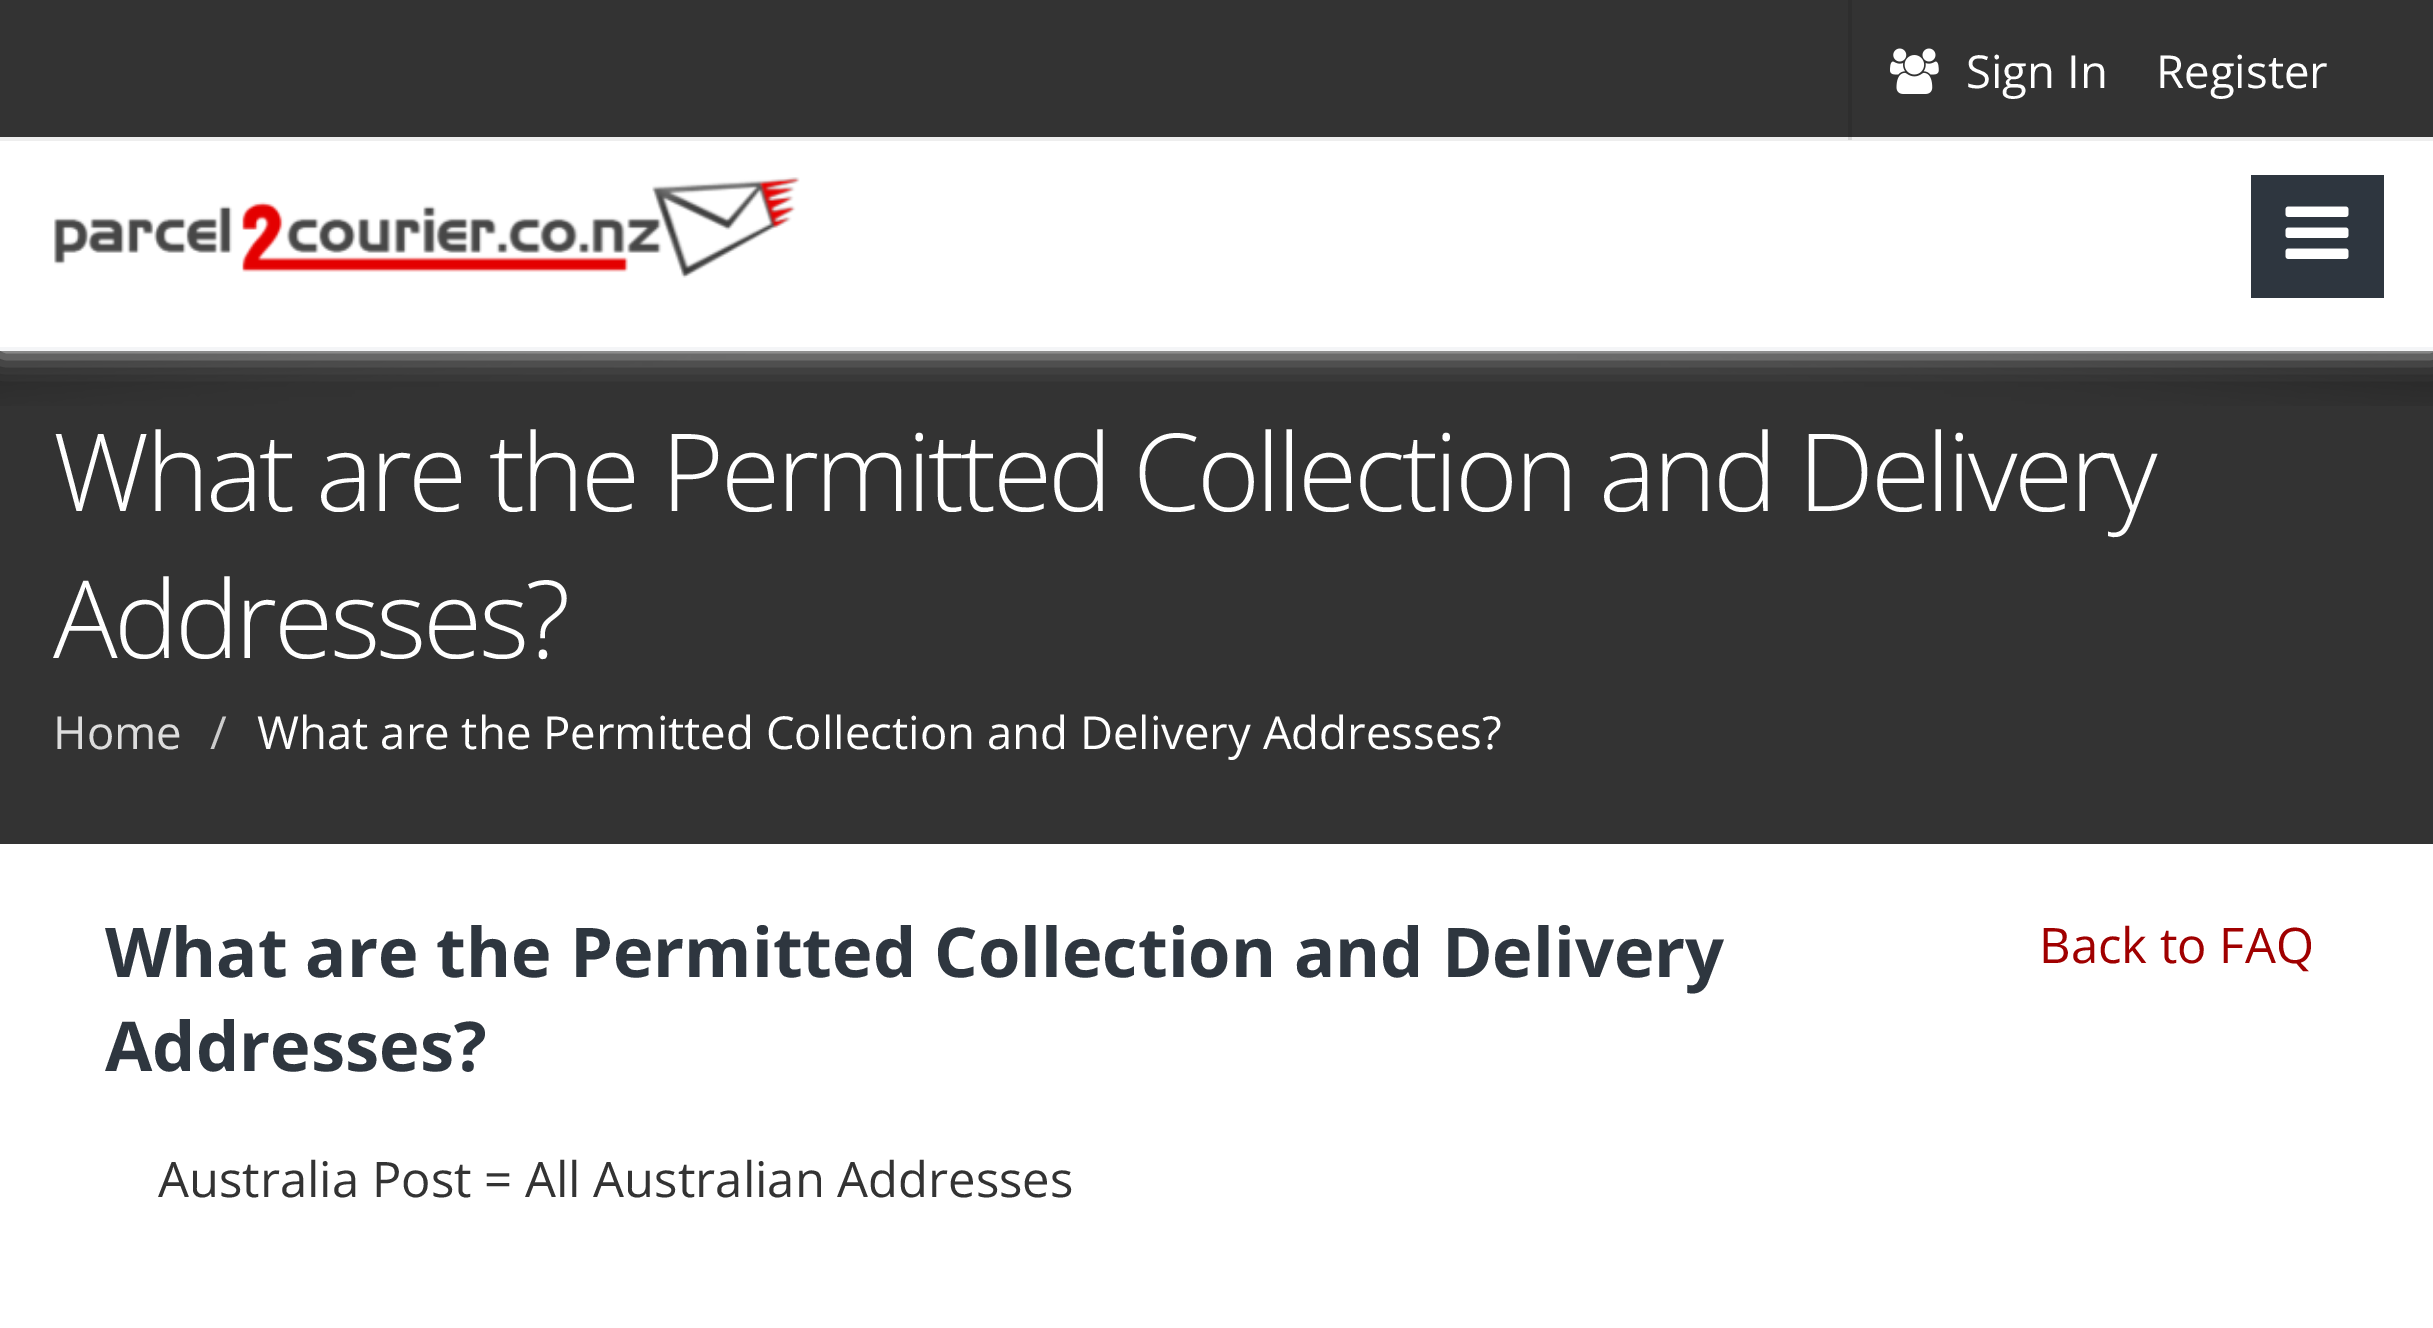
%!PS-Adobe-3.0
%%BoundingBox: 0 0 2433 1328
%%LanguageLevel: 3
%%Pages: 1
%%EndComments
%%BeginProlog
/setink { 3 { 255 div 3 1 roll } repeat setrgbcolor } def
/usefont { [ exch dup neg 0 0 3 -1 roll 0 0 ] selectfont } def
/drawtext { setink usefont moveto show } def
/fillbox { setink rectfill } def
/setalpha { dup .setfillconstantalpha .setstrokeconstantalpha } def
/rrect { 5 dict begin { /r /h /w /y /x } { exch def } forall
  x r add y moveto x w add y 2 copy h add r arct x w add y h add x 1 index r arct
  x y h add x y r arct x y 2 copy exch w add exch r arct closepath end } def
/softshadow { 12 dict begin { /a /b /q /h /w /y /x } { exch def } forall gsave /was 0 def
  9 -2 -9 { dup b mul 4 div /e exch def 1 sub .425 mul 2.718 exch exp 1 add a .99 .min exch div /now exch def
    1 1 now sub 1 was sub div sub setalpha /was now def
    w h .min e 2 mul add 0 gt { x e sub y e sub w e 2 mul add h e 2 mul add
      q e add b .6 mul add w h .min 2 div e add .min 0 .max rrect fill } if } for grestore end } def
/drawimage { 5 dict begin { /h /w /y /x /name } { exch def } forall
  gsave x y translate w h scale
  w h 8 [w 0 0 h 0 0] name (r) file false 3 colorimage grestore end } def
%%EndProlog
%%BeginSetup
<< /PageSize [2433 1328] /PageUsesTransparency true >> setpagedevice
%%EndSetup
%%Page: 1 1
0 .pushpdf14devicefilter
0 1328 translate 1 -1 scale
4 setmiterlimit
0 0 2433 1328 255 255 255 fillbox
0 351 2433 493 51 51 51 fillbox
(assets/img4.rgb) 0 351 2433 55 drawimage
238 238 238 setink
0 140 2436 210 0 14 1 softshadow
0 0 2433 137 51 51 51 fillbox
0 137 2433 4 238 238 238 fillbox
0.1 setalpha
1848 0 4 140 0 0 0 fillbox
1 setalpha
(assets/img1.rgb) 1890 48 49 46 drawimage
(Sign In) 1966 88 /OpenSans-Regular 45.5 255 255 255 drawtext
(Register) 2156 88 /OpenSans-Regular 45.5 255 255 255 drawtext
0 141 2433 206 255 255 255 fillbox
0 347 2433 4 244 245 247 fillbox
(assets/img2.rgb) 54 177 746 101 drawimage
2251 175 133 123 46 54 63 fillbox
(assets/img3.rgb) 2285 206 64 53 drawimage
/OpenSans-Light 107.75 usefont
255 255 255 setink
53 511 moveto -3.5 0 (What are the Permitted Collection and Delivery) ashow
53 658 moveto -3.5 0 (Addresses?) ashow
(Home) 53 749 /OpenSans-Regular 45.5 221 221 221 drawtext
(/) 210 749 /OpenSans-Regular 45.5 204 204 204 drawtext
(What are the Permitted Collection and Delivery Addresses?) 257 749 /OpenSans-Regular 45.5 255 255 255 drawtext
(What are the Permitted Collection and Delivery) 105 977 /OpenSans-Bold 68.6 46 54 63 drawtext
(Addresses?) 105 1071 /OpenSans-Bold 68.6 46 54 63 drawtext
(Back to FAQ) 2039 963 /OpenSans-Regular 49 160 0 0 drawtext
(Australia Post = All Australian Addresses) 158 1197 /OpenSans-Regular 49 51 51 51 drawtext
.poppdf14devicefilter showpage
%%EOF
